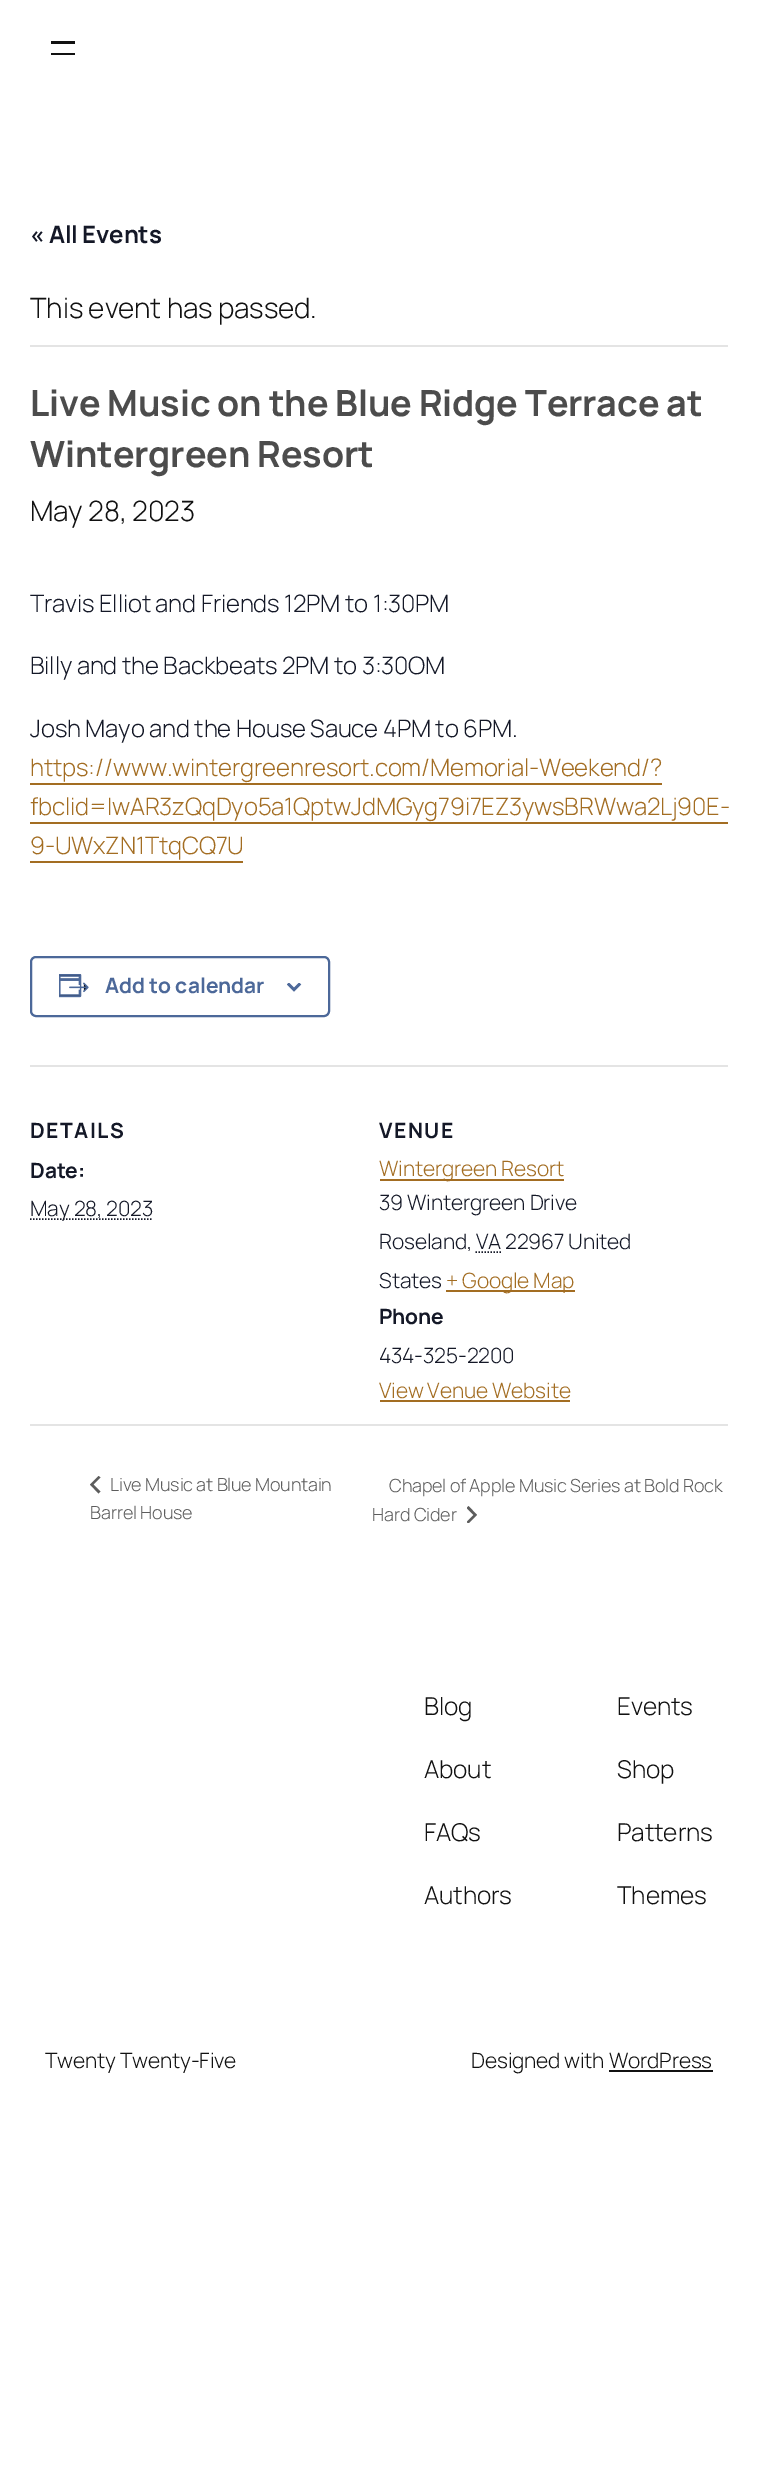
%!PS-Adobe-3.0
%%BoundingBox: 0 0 757 2469
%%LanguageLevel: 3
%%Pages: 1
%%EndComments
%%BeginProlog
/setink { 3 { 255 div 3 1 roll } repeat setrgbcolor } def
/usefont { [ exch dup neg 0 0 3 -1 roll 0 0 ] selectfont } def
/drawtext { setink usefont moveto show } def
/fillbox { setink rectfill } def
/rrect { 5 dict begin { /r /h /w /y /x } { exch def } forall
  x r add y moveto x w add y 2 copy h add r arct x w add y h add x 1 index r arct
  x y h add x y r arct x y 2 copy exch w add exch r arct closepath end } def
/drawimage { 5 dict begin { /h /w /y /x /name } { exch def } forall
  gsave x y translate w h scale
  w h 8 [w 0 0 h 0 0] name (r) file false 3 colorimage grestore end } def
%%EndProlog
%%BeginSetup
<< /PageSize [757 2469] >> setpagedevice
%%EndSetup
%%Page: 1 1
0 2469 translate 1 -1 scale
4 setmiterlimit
0 0 757 2469 255 255 255 fillbox
51 41 24 3 17 17 17 fillbox
51 53 24 2 17 17 17 fillbox
/Manrope-Bold 24 usefont
20 24 39 setink
30 243 moveto -0.15 0 (« All Events) ashow
30 345 698 2 228 228 228 fillbox
/Manrope-Light 28 usefont
17 17 17 setink
30 318 moveto -0.15 0 (This event has passed.) ashow
/Manrope-Bold 36 usefont
76 76 76 setink
30 416 moveto -0.15 0 (Live Music on the Blue Ridge Terrace at) ashow
30 467 moveto -0.15 0 (Wintergreen Resort) ashow
/Manrope-Light 28 usefont
17 17 17 setink
30 521 moveto -0.15 0 (May 28, 2023) ashow
/Manrope-Light 24 usefont
20 24 39 setink
30 612 moveto -0.15 0 (Travis Elliot and Friends 12PM to 1:30PM) ashow
30 674 moveto -0.15 0 (Billy and the Backbeats 2PM to 3:30OM) ashow
30 737 moveto -0.15 0 (Josh Mayo and the House Sauce 4PM to 6PM.) ashow
163 109 34 setink
30 776 moveto -0.15 0 (https://www.wintergreenresort.com/Memorial-Weekend/?) ashow
30 783 632 2 163 109 34 fillbox
30 815 moveto -0.15 0 (fbclid=IwAR3zQqDyo5a1QptwJdMGyg79i7EZ3ywsBRWwa2Lj90E-) ashow
30 822 698 2 163 109 34 fillbox
30 854 moveto -0.15 0 (9-UWxZN1TtqCQ7U) ashow
30 861 213 2 163 109 34 fillbox
76 104 153 setink
2 setlinewidth
31 957 298 59 5 rrect stroke
(assets/img1.rgb) 59 974 30 24 drawimage
(Add to calendar) 105 993 /Manrope-Bold 21 76 104 153 drawtext
(assets/img2.rgb) 287 983 15 9 drawimage
30 1065 698 2 228 228 228 fillbox
20 24 39 setink
30 1138 moveto 1.5 0 (DETAILS) ashow
30 1178 moveto -0.15 0 (Date:) ashow
1.5 setlinewidth
[1.5 1.5] 0 setdash
30 1219 moveto 153 1219 lineto stroke
/Manrope-Light 21 usefont
30 1216 moveto -0.15 0 (May 28, 2023) ashow
/Manrope-Bold 21 usefont
379 1138 moveto 1.5 0 (VENUE) ashow
380 1179 184 2 163 109 34 fillbox
/Manrope-Light 21 usefont
379 1176 moveto -0.15 0 (Wintergreen Resort) ashow
20 24 39 setink
379 1210 moveto -0.15 0 (39 Wintergreen Drive) ashow
379 1249 moveto -0.15 0 (Roseland, VA 22967 United) ashow
475.5 1252 moveto 501 1252 lineto stroke
379 1288 moveto -0.15 0 (States) ashow
446 1290 129 2 163 109 34 fillbox
446 1288 moveto -0.15 0 (+ Google Map) ashow
/Manrope-Bold 21 usefont
20 24 39 setink
379 1324 moveto -0.15 0 (Phone) ashow
/Manrope-Light 21 usefont
379 1363 moveto -0.15 0 (434-325-2200) ashow
163 109 34 setink
379 1398 moveto -0.15 0 (View Venue Website) ashow
380 1400 190 2 163 109 34 fillbox
30 1424 698 2 228 228 228 fillbox
93 93 93 setink
100.5 1491.5 moveto 98.5 1493.5 lineto 90 1484.5 lineto 98.5 1476 lineto 100.5 1477.5 lineto 93.5 1484.5 lineto closepath fill
/Manrope-Light 18 usefont
110 1491 moveto -0.15 0 (Live Music at Blue Mountain) ashow
90 1519 moveto -0.15 0 (Barrel House) ashow
389 1492 moveto -0.15 0 (Chapel of Apple Music Series at Bold Rock) ashow
372 1521 moveto -0.15 0 (Hard Cider) ashow
gsave
467 1506 10 17 rectclip
466.5 1508 moveto 468.5 1506 lineto 477 1515 lineto 468.5 1523.5 lineto 466.5 1522 lineto 473.5 1515 lineto closepath fill
grestore
/Manrope-Light 24.5 usefont
17 17 17 setink
424 1715 moveto -0.15 0 (Blog) ashow
424 1778 moveto -0.15 0 (About) ashow
424 1841 moveto -0.15 0 (FAQs) ashow
424 1904 moveto -0.15 0 (Authors) ashow
617 1715 moveto -0.15 0 (Events) ashow
617 1778 moveto -0.15 0 (Shop) ashow
617 1841 moveto -0.15 0 (Patterns) ashow
617 1904 moveto -0.15 0 (Themes) ashow
/Manrope-Light 21 usefont
45 2068 moveto -0.15 0 (Twenty Twenty-Five) ashow
471 2068 moveto -0.15 0 (Designed with WordPress) ashow
609 2070 104 2 17 17 17 fillbox
showpage
%%EOF
